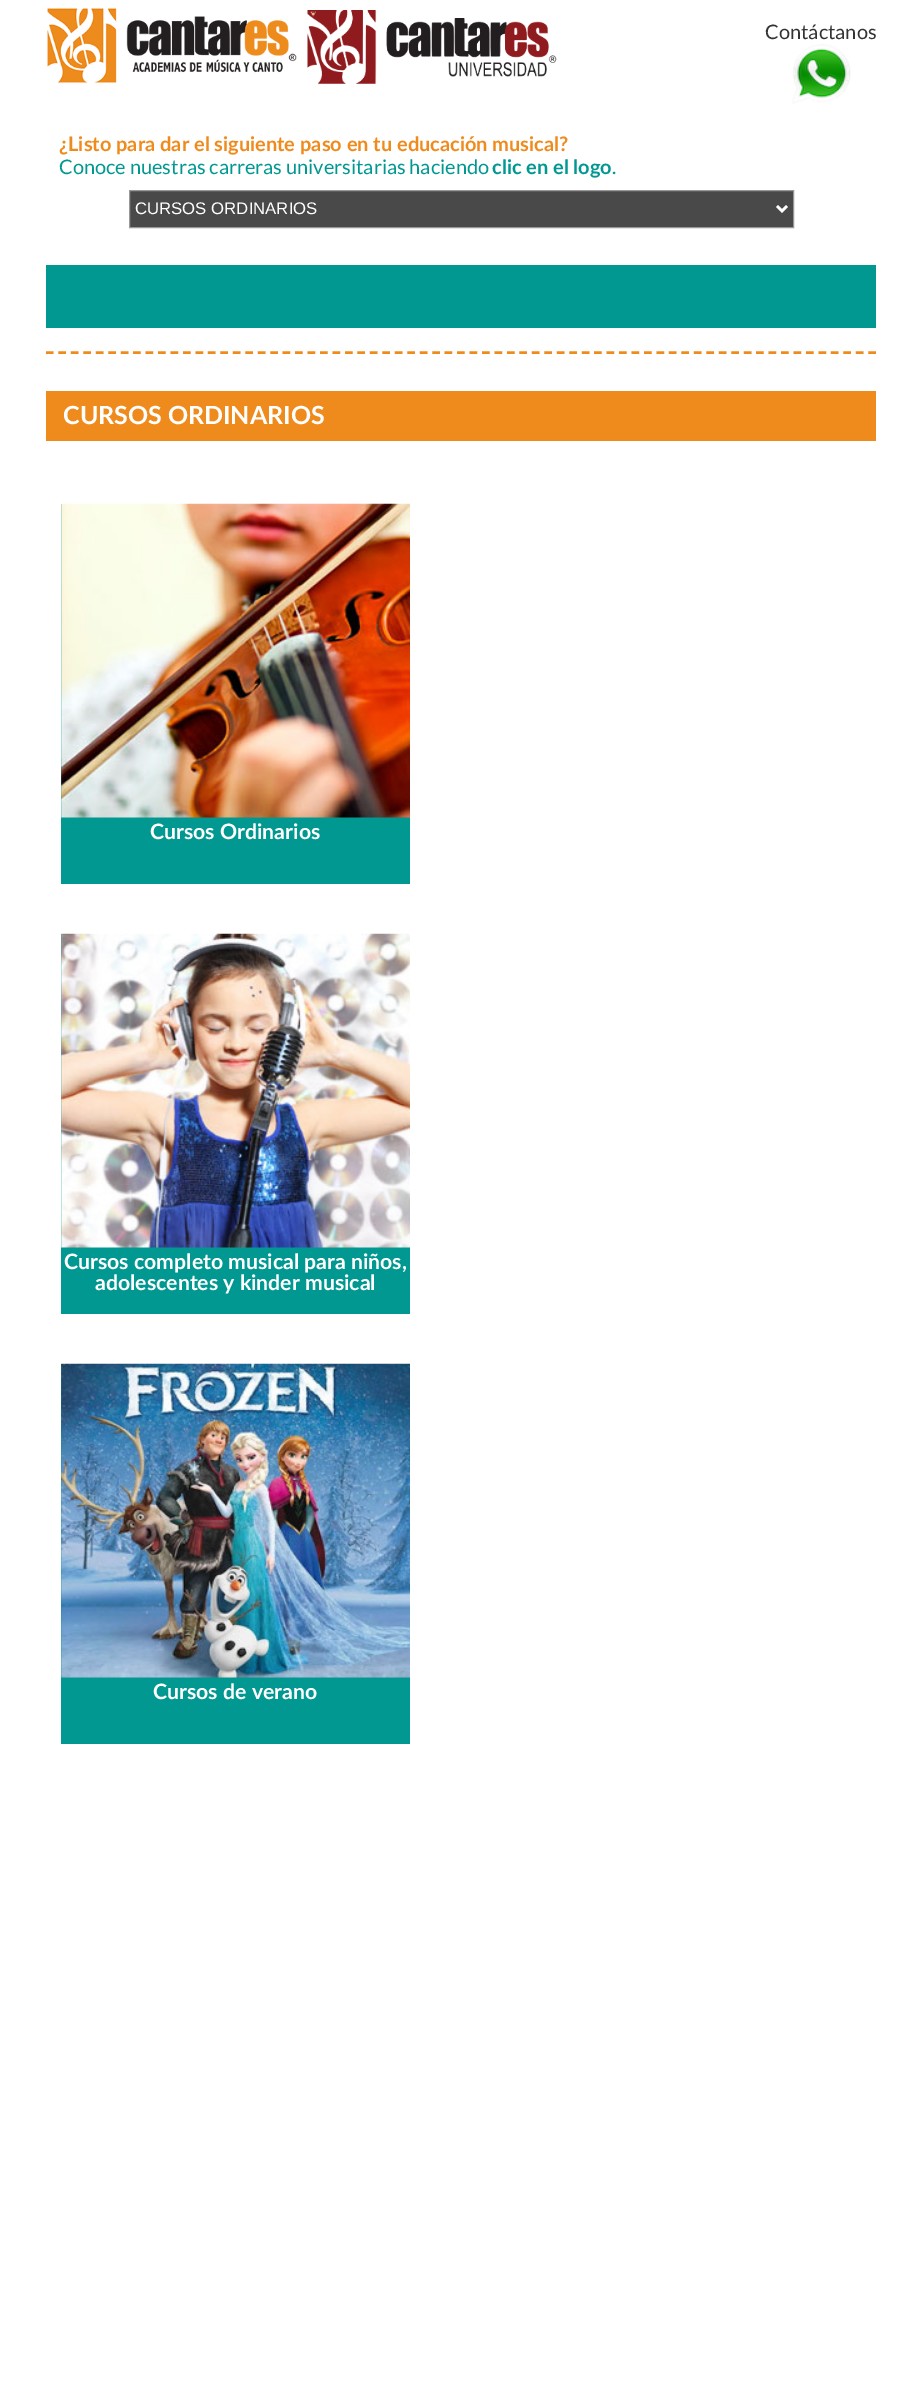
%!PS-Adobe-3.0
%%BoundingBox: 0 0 922 2383
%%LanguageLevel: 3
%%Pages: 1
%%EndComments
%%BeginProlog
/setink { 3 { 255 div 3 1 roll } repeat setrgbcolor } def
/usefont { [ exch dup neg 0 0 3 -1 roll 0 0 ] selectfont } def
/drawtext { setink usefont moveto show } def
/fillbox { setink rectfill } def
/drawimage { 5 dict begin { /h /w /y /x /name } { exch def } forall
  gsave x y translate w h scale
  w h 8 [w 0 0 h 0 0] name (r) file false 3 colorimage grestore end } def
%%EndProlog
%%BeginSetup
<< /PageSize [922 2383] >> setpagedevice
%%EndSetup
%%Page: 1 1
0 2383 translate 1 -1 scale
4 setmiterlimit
0 0 922 2383 255 255 255 fillbox
(assets/img1.rgb) 46 8 251 75 drawimage
(assets/img2.rgb) 307 10 250 74 drawimage
(Contáctanos) 765 39 /Lato-Regular 20 51 51 51 drawtext
(assets/img3.rgb) 792 44 59 60 drawimage
(¿Listo para dar el siguiente paso en tu educación musical?) 59 151 /Lato-Bold 20 239 139 28 drawtext
(Conoce nuestras carreras universitarias haciendo) 59 174 /Lato-Regular 20 0 152 145 drawtext
(clic en el logo) 492 174 /Lato-Bold 20 0 152 145 drawtext
(.) 612 174 /Lato-Regular 20 0 152 145 drawtext
73 73 73 setink
129.5 190.5 moveto 793.5 190.5 lineto 793.5 227.5 lineto 129.5 227.5 lineto closepath gsave fill grestore
153 153 153 setink
stroke
255 255 255 setink
2.5 setlinewidth
777 206 moveto 782 211 lineto 787 206 lineto stroke
(CURSOS ORDINARIOS) 135 214 /LiberationSans-Regular 16.75 255 255 255 drawtext
46 265 830 63 0 152 145 fillbox
239 139 28 setink
[7.5 4.96] 0 setdash
46 352.5 moveto 876 352.5 lineto stroke
46 391 830 50 239 139 28 fillbox
(CURSOS ORDINARIOS) 63 424 /Lato-Bold 25 255 255 255 drawtext
61 504 349 380 0 152 145 fillbox
(assets/img4.rgb) 61 503 349 315 drawimage
(Cursos Ordinarios) 150 839 /Lato-Bold 21.25 255 255 255 drawtext
61 934 349 380 0 152 145 fillbox
(assets/img5.rgb) 61 933 349 315 drawimage
(Cursos completo musical para niños,) 64 1269 /Lato-Bold 21.25 255 255 255 drawtext
(adolescentes y kinder musical) 95 1290 /Lato-Bold 21.25 255 255 255 drawtext
61 1364 349 380 0 152 145 fillbox
(assets/img6.rgb) 61 1363 349 315 drawimage
(Cursos de verano) 153 1699 /Lato-Bold 21.25 255 255 255 drawtext
showpage
%%EOF
